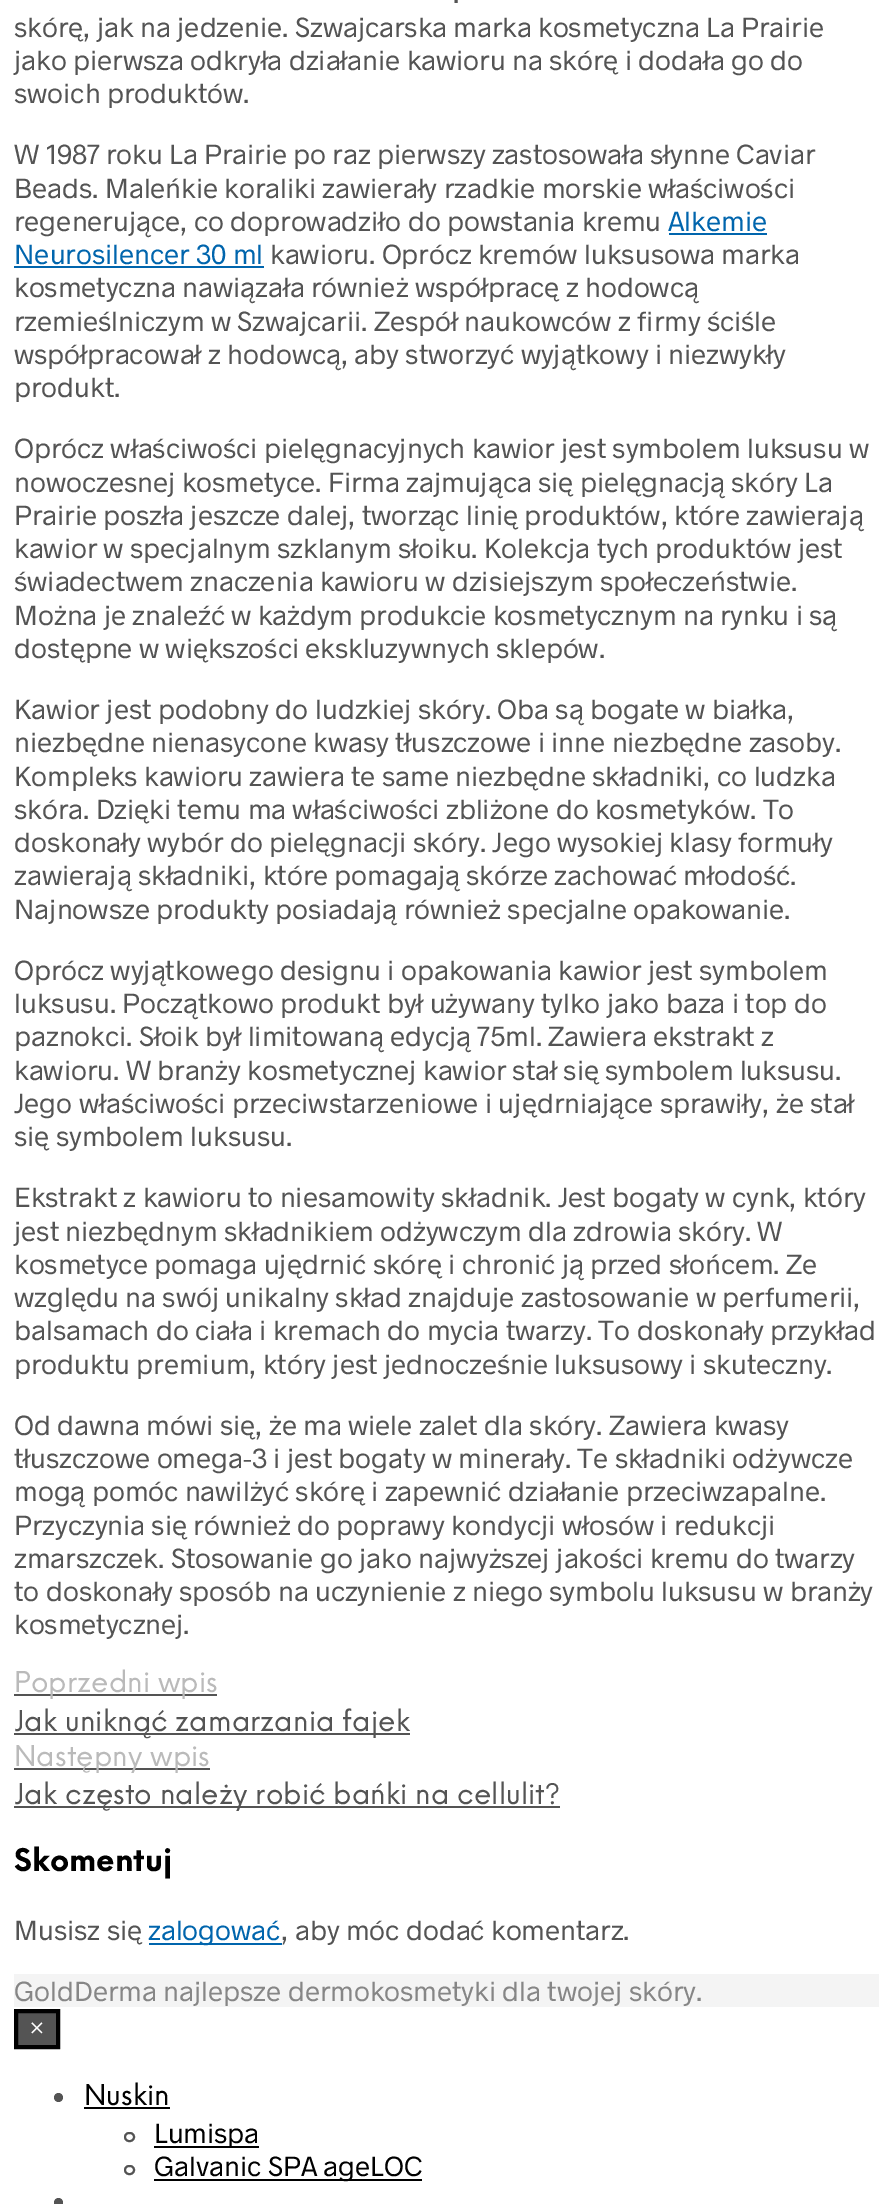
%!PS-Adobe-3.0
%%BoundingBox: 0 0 892 2204
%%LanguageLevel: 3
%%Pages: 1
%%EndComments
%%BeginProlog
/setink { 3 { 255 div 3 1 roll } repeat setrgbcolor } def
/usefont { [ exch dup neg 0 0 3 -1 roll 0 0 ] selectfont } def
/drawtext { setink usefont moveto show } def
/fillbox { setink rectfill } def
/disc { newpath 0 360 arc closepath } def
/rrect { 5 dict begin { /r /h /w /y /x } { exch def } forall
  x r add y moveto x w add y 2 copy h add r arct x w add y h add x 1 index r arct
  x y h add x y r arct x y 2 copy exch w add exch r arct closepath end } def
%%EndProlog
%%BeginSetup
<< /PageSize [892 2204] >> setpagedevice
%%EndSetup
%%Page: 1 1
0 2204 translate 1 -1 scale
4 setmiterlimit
0 0 892 2204 255 255 255 fillbox
(.) 453 3 /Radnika-Regular 28 84 84 84 drawtext
(skórę, jak na jedzenie. Szwajcarska marka kosmetyczna La Prairie) 14 37 /Radnika-Regular 28 84 84 84 drawtext
(jako pierwsza odkryła działanie kawioru na skórę i dodała go do) 14 70 /Radnika-Regular 28 84 84 84 drawtext
(swoich produktów.) 14 103 /Radnika-Regular 28 84 84 84 drawtext
(W 1987 roku La Prairie po raz pierwszy zastosowała słynne Caviar) 14 164 /Radnika-Regular 28 84 84 84 drawtext
(Beads. Maleńkie koraliki zawierały rzadkie morskie właściwości) 14 198 /Radnika-Regular 28 84 84 84 drawtext
(regenerujące, co doprowadziło do powstania kremu) 14 231 /Radnika-Regular 28 84 84 84 drawtext
(Alkemie) 668 231 /Radnika-Regular 28 0 101 173 drawtext
669 233 98 2 0 101 173 fillbox
(Neurosilencer 30 ml) 14 264 /Radnika-Regular 28 0 101 173 drawtext
14 266 250 2 0 101 173 fillbox
(kawioru. Oprócz kremów luksusowa marka) 270 264 /Radnika-Regular 28 84 84 84 drawtext
(kosmetyczna nawiązała również współpracę z hodowcą) 14 297 /Radnika-Regular 28 84 84 84 drawtext
(rzemieślniczym w Szwajcarii. Zespół naukowców z firmy ściśle) 14 331 /Radnika-Regular 28 84 84 84 drawtext
(współpracował z hodowcą, aby stworzyć wyjątkowy i niezwykły) 14 364 /Radnika-Regular 28 84 84 84 drawtext
(produkt.) 14 397 /Radnika-Regular 28 84 84 84 drawtext
(Oprócz właściwości pielęgnacyjnych kawior jest symbolem luksusu w) 14 458 /Radnika-Regular 28 84 84 84 drawtext
(nowoczesnej kosmetyce. Firma zajmująca się pielęgnacją skóry La) 14 492 /Radnika-Regular 28 84 84 84 drawtext
(Prairie poszła jeszcze dalej, tworząc linię produktów, które zawierają) 14 525 /Radnika-Regular 28 84 84 84 drawtext
(kawior w specjalnym szklanym słoiku. Kolekcja tych produktów jest) 14 558 /Radnika-Regular 28 84 84 84 drawtext
(świadectwem znaczenia kawioru w dzisiejszym społeczeństwie.) 14 591 /Radnika-Regular 28 84 84 84 drawtext
(Można je znaleźć w każdym produkcie kosmetycznym na rynku i są) 14 625 /Radnika-Regular 28 84 84 84 drawtext
(dostępne w większości ekskluzywnych sklepów.) 14 658 /Radnika-Regular 28 84 84 84 drawtext
(Kawior jest podobny do ludzkiej skóry. Oba są bogate w białka,) 14 719 /Radnika-Regular 28 84 84 84 drawtext
(niezbędne nienasycone kwasy tłuszczowe i inne niezbędne zasoby.) 14 752 /Radnika-Regular 28 84 84 84 drawtext
(Kompleks kawioru zawiera te same niezbędne składniki, co ludzka) 14 786 /Radnika-Regular 28 84 84 84 drawtext
(skóra. Dzięki temu ma właściwości zbliżone do kosmetyków. To) 14 819 /Radnika-Regular 28 84 84 84 drawtext
(doskonały wybór do pielęgnacji skóry. Jego wysokiej klasy formuły) 14 852 /Radnika-Regular 28 84 84 84 drawtext
(zawierają składniki, które pomagają skórze zachować młodość.) 14 885 /Radnika-Regular 28 84 84 84 drawtext
(Najnowsze produkty posiadają również specjalne opakowanie.) 14 919 /Radnika-Regular 28 84 84 84 drawtext
(Oprócz wyjątkowego designu i opakowania kawior jest symbolem) 14 980 /Radnika-Regular 28 84 84 84 drawtext
(luksusu. Początkowo produkt był używany tylko jako baza i top do) 14 1013 /Radnika-Regular 28 84 84 84 drawtext
(paznokci. Słoik był limitowaną edycją 75ml. Zawiera ekstrakt z) 14 1046 /Radnika-Regular 28 84 84 84 drawtext
(kawioru. W branży kosmetycznej kawior stał się symbolem luksusu.) 14 1080 /Radnika-Regular 28 84 84 84 drawtext
(Jego właściwości przeciwstarzeniowe i ujędrniające sprawiły, że stał) 14 1113 /Radnika-Regular 28 84 84 84 drawtext
(się symbolem luksusu.) 14 1146 /Radnika-Regular 28 84 84 84 drawtext
(Ekstrakt z kawioru to niesamowity składnik. Jest bogaty w cynk, który) 14 1207 /Radnika-Regular 28 84 84 84 drawtext
(jest niezbędnym składnikiem odżywczym dla zdrowia skóry. W) 14 1241 /Radnika-Regular 28 84 84 84 drawtext
(kosmetyce pomaga ujędrnić skórę i chronić ją przed słońcem. Ze) 14 1274 /Radnika-Regular 28 84 84 84 drawtext
(względu na swój unikalny skład znajduje zastosowanie w perfumerii,) 14 1307 /Radnika-Regular 28 84 84 84 drawtext
(balsamach do ciała i kremach do mycia twarzy. To doskonały przykład) 14 1340 /Radnika-Regular 28 84 84 84 drawtext
(produktu premium, który jest jednocześnie luksusowy i skuteczny.) 14 1374 /Radnika-Regular 28 84 84 84 drawtext
(Od dawna mówi się, że ma wiele zalet dla skóry. Zawiera kwasy) 14 1435 /Radnika-Regular 28 84 84 84 drawtext
(tłuszczowe omega-3 i jest bogaty w minerały. Te składniki odżywcze) 14 1468 /Radnika-Regular 28 84 84 84 drawtext
(mogą pomóc nawilżyć skórę i zapewnić działanie przeciwzapalne.) 14 1501 /Radnika-Regular 28 84 84 84 drawtext
(Przyczynia się również do poprawy kondycji włosów i redukcji) 14 1535 /Radnika-Regular 28 84 84 84 drawtext
(zmarszczek. Stosowanie go jako najwyższej jakości kremu do twarzy) 14 1568 /Radnika-Regular 28 84 84 84 drawtext
(to doskonały sposób na uczynienie z niego symbolu luksusu w branży) 14 1601 /Radnika-Regular 28 84 84 84 drawtext
(kosmetycznej.) 14 1634 /Radnika-Regular 28 84 84 84 drawtext
14 1694 203 2 84 84 84 fillbox
(Poprzedni wpis) 14 1692 /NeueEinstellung-Regular 28 186 186 186 drawtext
14 1733 396 2 84 84 84 fillbox
(Jak uniknąć zamarzania fajek) 14 1731 /NeueEinstellung-Regular 28 84 84 84 drawtext
14 1768 196 2 84 84 84 fillbox
(Następny wpis) 14 1766 /NeueEinstellung-Regular 28 186 186 186 drawtext
14 1806 546 2 84 84 84 fillbox
(Jak często należy robić bańki na cellulit?) 14 1804 /NeueEinstellung-Regular 28 84 84 84 drawtext
(Skomentuj) 14 1871 /NeueEinstellung-Bold 30.5 0 0 0 drawtext
(Musisz się) 14 1940 /Radnika-Regular 28 84 84 84 drawtext
149 1943 133 2 0 101 173 fillbox
(zalogować) 148 1940 /Radnika-Regular 28 0 101 173 drawtext
(, aby móc dodać komentarz.) 281 1940 /Radnika-Regular 28 84 84 84 drawtext
14 1974 865 33 244 244 244 fillbox
(GoldDerma najlepsze dermokosmetyki dla twojej skóry.) 14 2001 /Radnika-Regular 28 134 134 134 drawtext
84 84 84 setink
16 2011 moveto 58 2011 lineto 58 2047 lineto 16 2047 lineto closepath gsave fill grestore
0 0 0 setink
4 setlinewidth
stroke
(×) 28 2035 /NeueEinstellung-Regular 23 255 255 255 drawtext
84 84 84 setink
58.5 2097.5 4.5 disc fill
(Nuskin) 84 2105 /NeueEinstellung-Regular 28 0 0 0 drawtext
84 2107 86 2 0 0 0 fillbox
84 84 84 setink
2 setlinewidth
125 2133 9 8 4 rrect stroke
154 2146 105 2 0 0 0 fillbox
(Lumispa) 154 2143 /Radnika-Regular 28 0 0 0 drawtext
84 84 84 setink
125 2166 9 8 4 rrect stroke
154 2179 268 2 0 0 0 fillbox
(Galvanic SPA ageLOC) 154 2176 /Radnika-Regular 28 0 0 0 drawtext
84 84 84 setink
58.5 2202.5 4.5 disc fill
showpage
%%EOF
